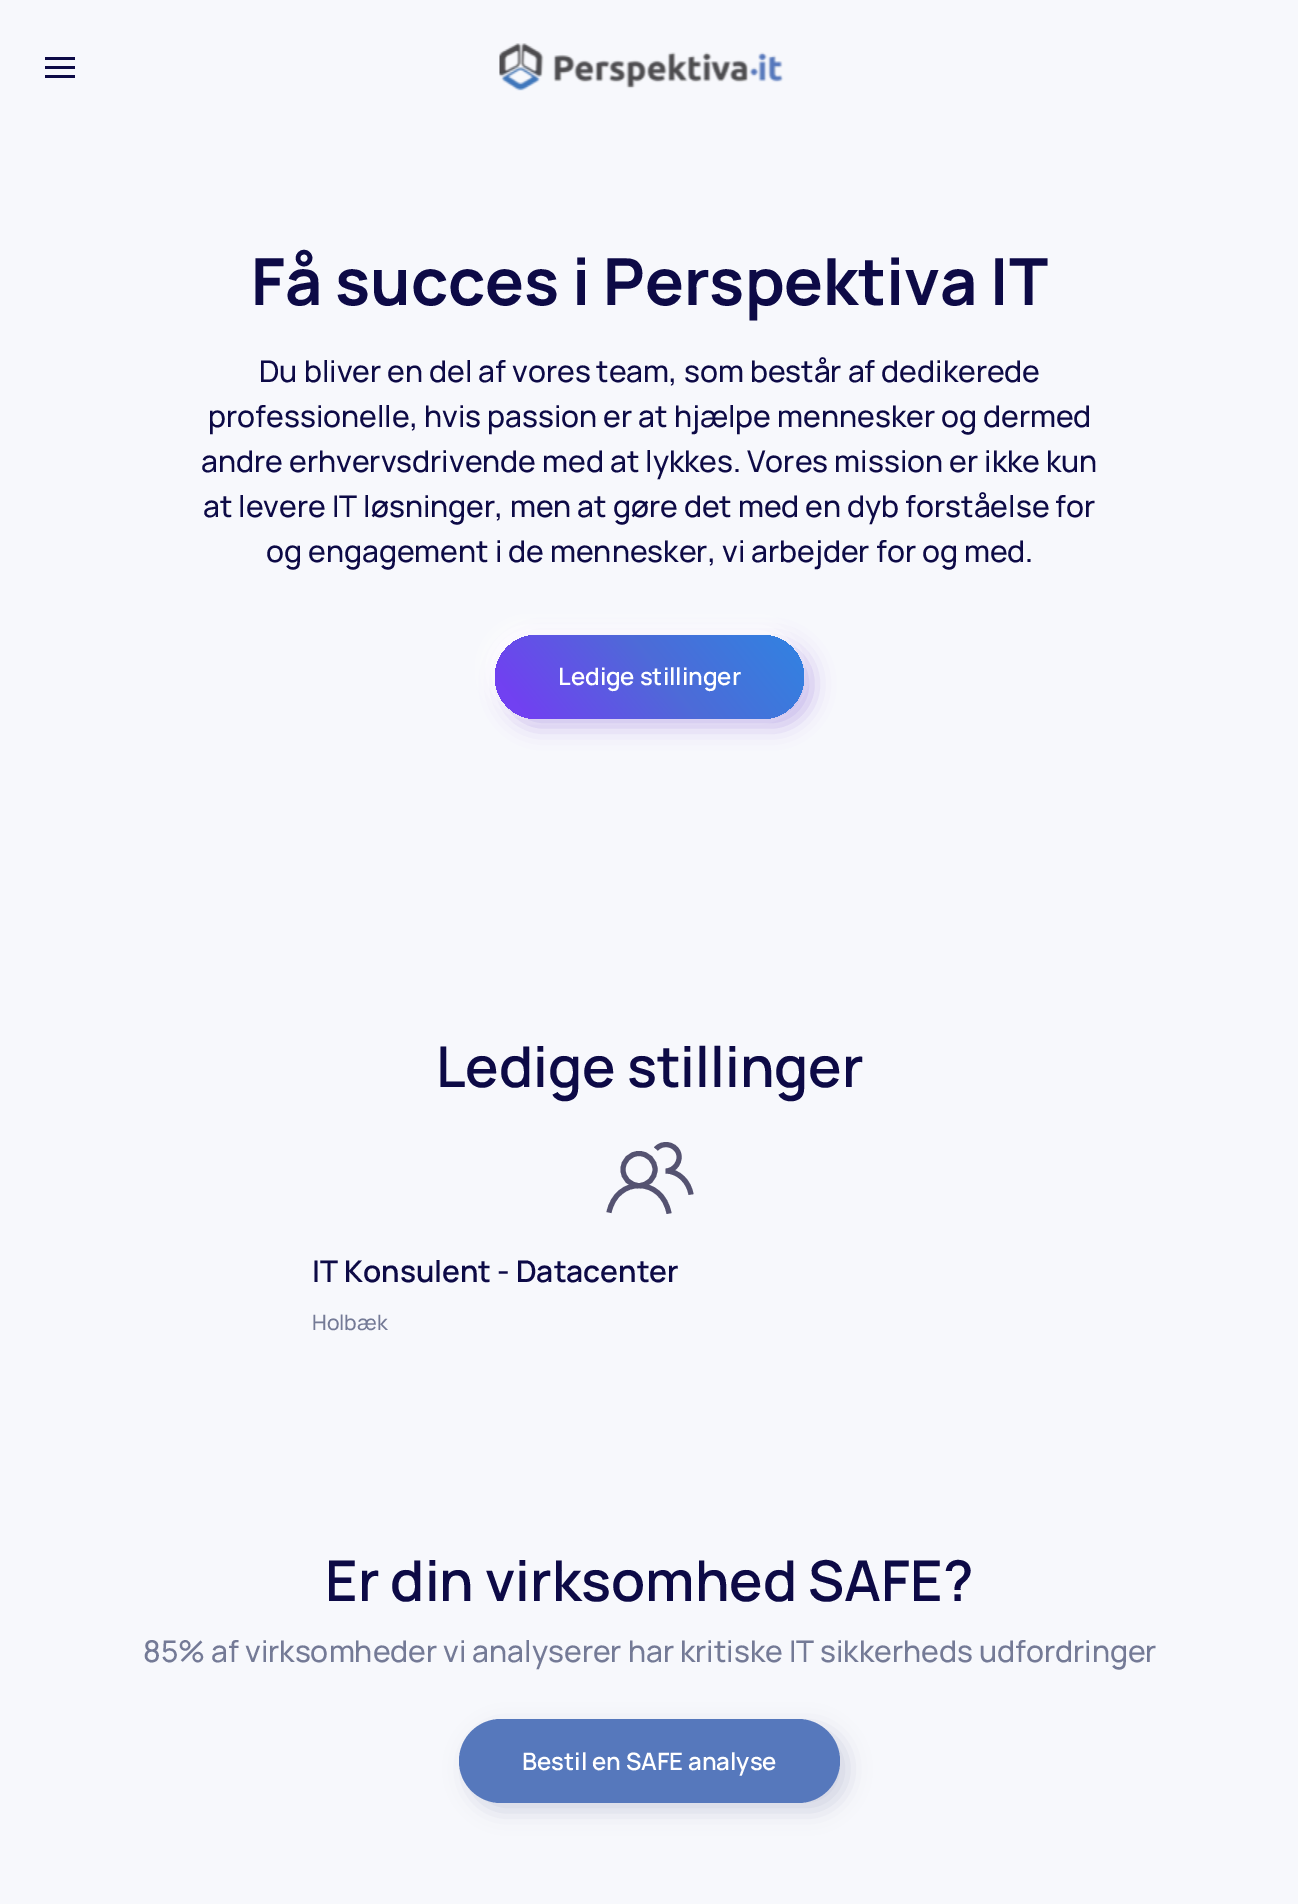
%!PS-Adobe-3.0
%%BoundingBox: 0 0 1298 1904
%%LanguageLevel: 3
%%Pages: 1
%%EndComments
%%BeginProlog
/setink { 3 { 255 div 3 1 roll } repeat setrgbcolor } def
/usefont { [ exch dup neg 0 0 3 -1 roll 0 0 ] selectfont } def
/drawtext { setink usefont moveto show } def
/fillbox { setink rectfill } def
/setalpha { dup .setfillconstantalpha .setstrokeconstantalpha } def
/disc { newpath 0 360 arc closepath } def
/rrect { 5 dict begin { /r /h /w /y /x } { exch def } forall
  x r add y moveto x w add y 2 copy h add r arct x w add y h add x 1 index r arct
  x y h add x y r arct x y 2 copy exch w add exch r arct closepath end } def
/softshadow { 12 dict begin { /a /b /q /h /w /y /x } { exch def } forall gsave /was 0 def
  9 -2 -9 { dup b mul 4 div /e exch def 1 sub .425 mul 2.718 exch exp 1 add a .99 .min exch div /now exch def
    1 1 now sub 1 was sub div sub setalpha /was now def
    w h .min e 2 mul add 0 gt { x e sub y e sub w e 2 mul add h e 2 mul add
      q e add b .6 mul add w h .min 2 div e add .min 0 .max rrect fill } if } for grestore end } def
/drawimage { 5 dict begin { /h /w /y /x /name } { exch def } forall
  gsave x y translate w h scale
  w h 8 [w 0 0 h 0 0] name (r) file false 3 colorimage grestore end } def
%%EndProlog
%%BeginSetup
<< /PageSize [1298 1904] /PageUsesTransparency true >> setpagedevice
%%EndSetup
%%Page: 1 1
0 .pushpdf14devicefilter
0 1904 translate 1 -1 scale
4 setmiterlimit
0 0 1298 1904 247 248 252 fillbox
45 57 30 3 13 10 70 fillbox
45 66 30 3 13 10 70 fillbox
45 75 30 3 13 10 70 fillbox
(assets/img1.rgb) 499 43 285 48 drawimage
(Få succes i Perspektiva IT) 251 305 /Manrope-ExtraLight 64.75 13 10 70 drawtext
(Du bliver en del af vores team, som består af dedikerede) 259 382 /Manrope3-ExtraLight 30 13 10 70 drawtext
(professionelle, hvis passion er at hjælpe mennesker og dermed) 208 427 /Manrope3-ExtraLight 30 13 10 70 drawtext
(andre erhvervsdrivende med at lykkes. Vores mission er ikke kun) 201 472 /Manrope3-ExtraLight 30 13 10 70 drawtext
(at levere IT løsninger, men at gøre det med en dyb forståelse for) 203 517 /Manrope3-ExtraLight 30 13 10 70 drawtext
(og engagement i de mennesker, vi arbejder for og med.) 266 562 /Manrope3-ExtraLight 30 13 10 70 drawtext
60 14 189 setink
503 642 309 84 42 11 0.3 softshadow
255 255 255 setink
488 627 309 84 42 11 0.9 softshadow
gsave 495 635 309 84 42 rrect clip newpath
<< /ShadingType 2 /ColorSpace /DeviceRGB /Coords [288 844 702 509] /Extend [true true] /Function << /FunctionType 3 /Domain [0 1] /Functions [<< /FunctionType 2 /Domain [0 1] /C0 [0.443 0.255 0.945] /C1 [0.443 0.255 0.945] /N 1 >> << /FunctionType 2 /Domain [0 1] /C0 [0.443 0.255 0.945] /C1 [0.302 0.42 0.847] /N 1 >> << /FunctionType 2 /Domain [0 1] /C0 [0.302 0.42 0.847] /C1 [0.192 0.514 0.886] /N 1 >>] /Bounds [0.5 0.75] /Encode [0 1 0 1 0 1] >> >> shfill grestore
(Ledige stillinger) 558 685 /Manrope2-ExtraLight 24 255 255 255 drawtext
(Ledige stillinger) 436 1087 /Manrope2-ExtraLight 56.1 13 10 70 drawtext
85 83 113 setink
5 setlinewidth
639 1169.5 16 disc stroke
609 1212.5 moveto 616.5 1176 662.5 1177 669 1213.5 curveto stroke
656 1149 moveto 662 1142 674 1143.5 678 1152 curveto 682 1160.5 675 1171 665.5 1171 curveto 679 1171 689 1182 691 1194.5 curveto stroke
(IT Konsulent - Datacenter) 312 1282 /Manrope2-ExtraLight 30 13 10 70 drawtext
(Holbæk) 312 1330 /Manrope3-ExtraLight 21 116 122 150 drawtext
(Er din virksomhed SAFE?) 325 1601 /Manrope2-ExtraLight 56.1 13 10 70 drawtext
(85% af virksomheder vi analyserer har kritiske IT sikkerheds udfordringer) 143 1662 /Manrope3-ExtraLight 30 116 122 150 drawtext
57 65 124 setink
467 1727 381 84 42 11 0.2 softshadow
86 120 188 setink
459 1719 381 84 42 rrect fill
(Bestil en SAFE analyse) 522 1770 /Manrope2-ExtraLight 24 255 255 255 drawtext
.poppdf14devicefilter showpage
%%EOF
